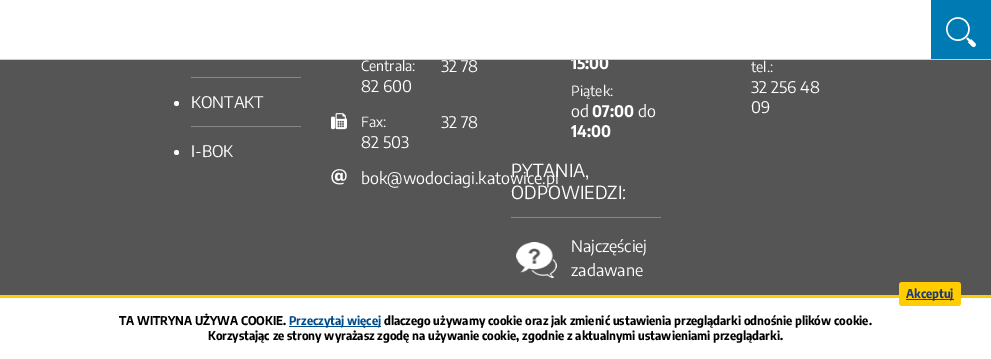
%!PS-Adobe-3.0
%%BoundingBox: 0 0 991 359
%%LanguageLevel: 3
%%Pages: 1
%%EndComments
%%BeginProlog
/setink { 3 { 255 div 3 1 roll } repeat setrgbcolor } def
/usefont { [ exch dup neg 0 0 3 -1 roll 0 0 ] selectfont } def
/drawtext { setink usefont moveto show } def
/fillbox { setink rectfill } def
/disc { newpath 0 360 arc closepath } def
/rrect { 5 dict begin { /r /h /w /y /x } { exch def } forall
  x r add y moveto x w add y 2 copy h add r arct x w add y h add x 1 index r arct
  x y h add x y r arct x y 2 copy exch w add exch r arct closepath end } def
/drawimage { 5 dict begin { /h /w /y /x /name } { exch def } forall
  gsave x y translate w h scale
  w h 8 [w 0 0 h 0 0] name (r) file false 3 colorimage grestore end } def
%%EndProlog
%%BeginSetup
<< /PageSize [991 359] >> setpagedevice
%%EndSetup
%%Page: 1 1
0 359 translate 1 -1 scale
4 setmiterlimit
0 0 991 359 85 85 85 fillbox
0 0 931 59 255 255 255 fillbox
(Centrala:) 361 71 /EncodeSans-Regular 14 255 255 255 drawtext
(15:00) 571 69 /EncodeSansSemiCondensed-Bold 16 255 255 255 drawtext
0 59 991 1 204 204 204 fillbox
931 0 60 59 0 122 179 fillbox
(assets/img1.rgb) 946 17 30 31 drawimage
(32 78) 441 72 /EncodeSans-Regular 16 255 255 255 drawtext
(82 600) 361 92 /EncodeSans-Regular 16 255 255 255 drawtext
(assets/img2.rgb) 331 113 16 17 drawimage
(Fax:) 361 127 /EncodeSans-Regular 14 255 255 255 drawtext
(32 78) 441 128 /EncodeSans-Regular 16 255 255 255 drawtext
(82 503) 361 148 /EncodeSans-Regular 16 255 255 255 drawtext
(assets/img3.rgb) 331 169 16 16 drawimage
(bok@wodociagi.katowice.pl) 361 184 /EncodeSans-Regular 16 255 255 255 drawtext
(Piątek:) 571 96 /EncodeSans-Regular 14 255 255 255 drawtext
(od) 571 117 /EncodeSans-Regular 16 255 255 255 drawtext
(07:00) 592 117 /EncodeSansSemiCondensed-Bold 16 255 255 255 drawtext
(do) 638 117 /EncodeSans-Regular 16 255 255 255 drawtext
(14:00) 571 137 /EncodeSansSemiCondensed-Bold 16 255 255 255 drawtext
511 217 150 1 136 136 136 fillbox
(PYTANIA,) 511 177 /EncodeSans-Regular 18 255 255 255 drawtext
(ODPOWIEDZI:) 511 199 /EncodeSans-Regular 18 255 255 255 drawtext
(assets/img4.rgb) 516 242 41 36 drawimage
(Najczęściej) 571 252 /EncodeSans-Regular 16 255 255 255 drawtext
(zadawane) 571 276 /EncodeSans-Regular 16 255 255 255 drawtext
(tel.:) 751 72 /EncodeSans-Regular 14 255 255 255 drawtext
(32 256 48) 751 93 /EncodeSans-Regular 16 255 255 255 drawtext
(09) 751 113 /EncodeSans-Regular 16 255 255 255 drawtext
191 77 110 1 136 136 136 fillbox
255 255 255 setink
176.5 103.5 2.5 disc fill
191 126 110 1 136 136 136 fillbox
(KONTAKT) 191 108 /EncodeSans-Regular 16 255 255 255 drawtext
176.5 152.5 2.5 disc fill
(I-BOK) 191 157 /EncodeSans-Regular 16 255 255 255 drawtext
0 298 991 61 255 255 255 fillbox
0 295 991 3 255 205 0 fillbox
899 282 62 24 3 rrect fill
906 299 48 1 33 57 108 fillbox
(Akceptuj) 906 298 /EncodeSansSemiCondensed-Bold 12 33 57 108 drawtext
(TA WITRYNA UŻYWA COOKIE.) 119 325 /EncodeSansSemiCondensed-Bold 12 0 0 0 drawtext
289 326 92 1 0 76 138 fillbox
(Przeczytaj więcej) 289 325 /EncodeSansSemiCondensed-Bold 12 0 76 138 drawtext
(dlaczego używamy cookie oraz jak zmienić ustawienia przeglądarki odnośnie plików cookie.) 384 325 /EncodeSansSemiCondensed-Bold 12 0 0 0 drawtext
(Korzystając ze strony wyrażasz zgodę na używanie cookie, zgodnie z aktualnymi ustawieniami przeglądarki.) 208 340 /EncodeSansSemiCondensed-Bold 12 0 0 0 drawtext
showpage
%%EOF
